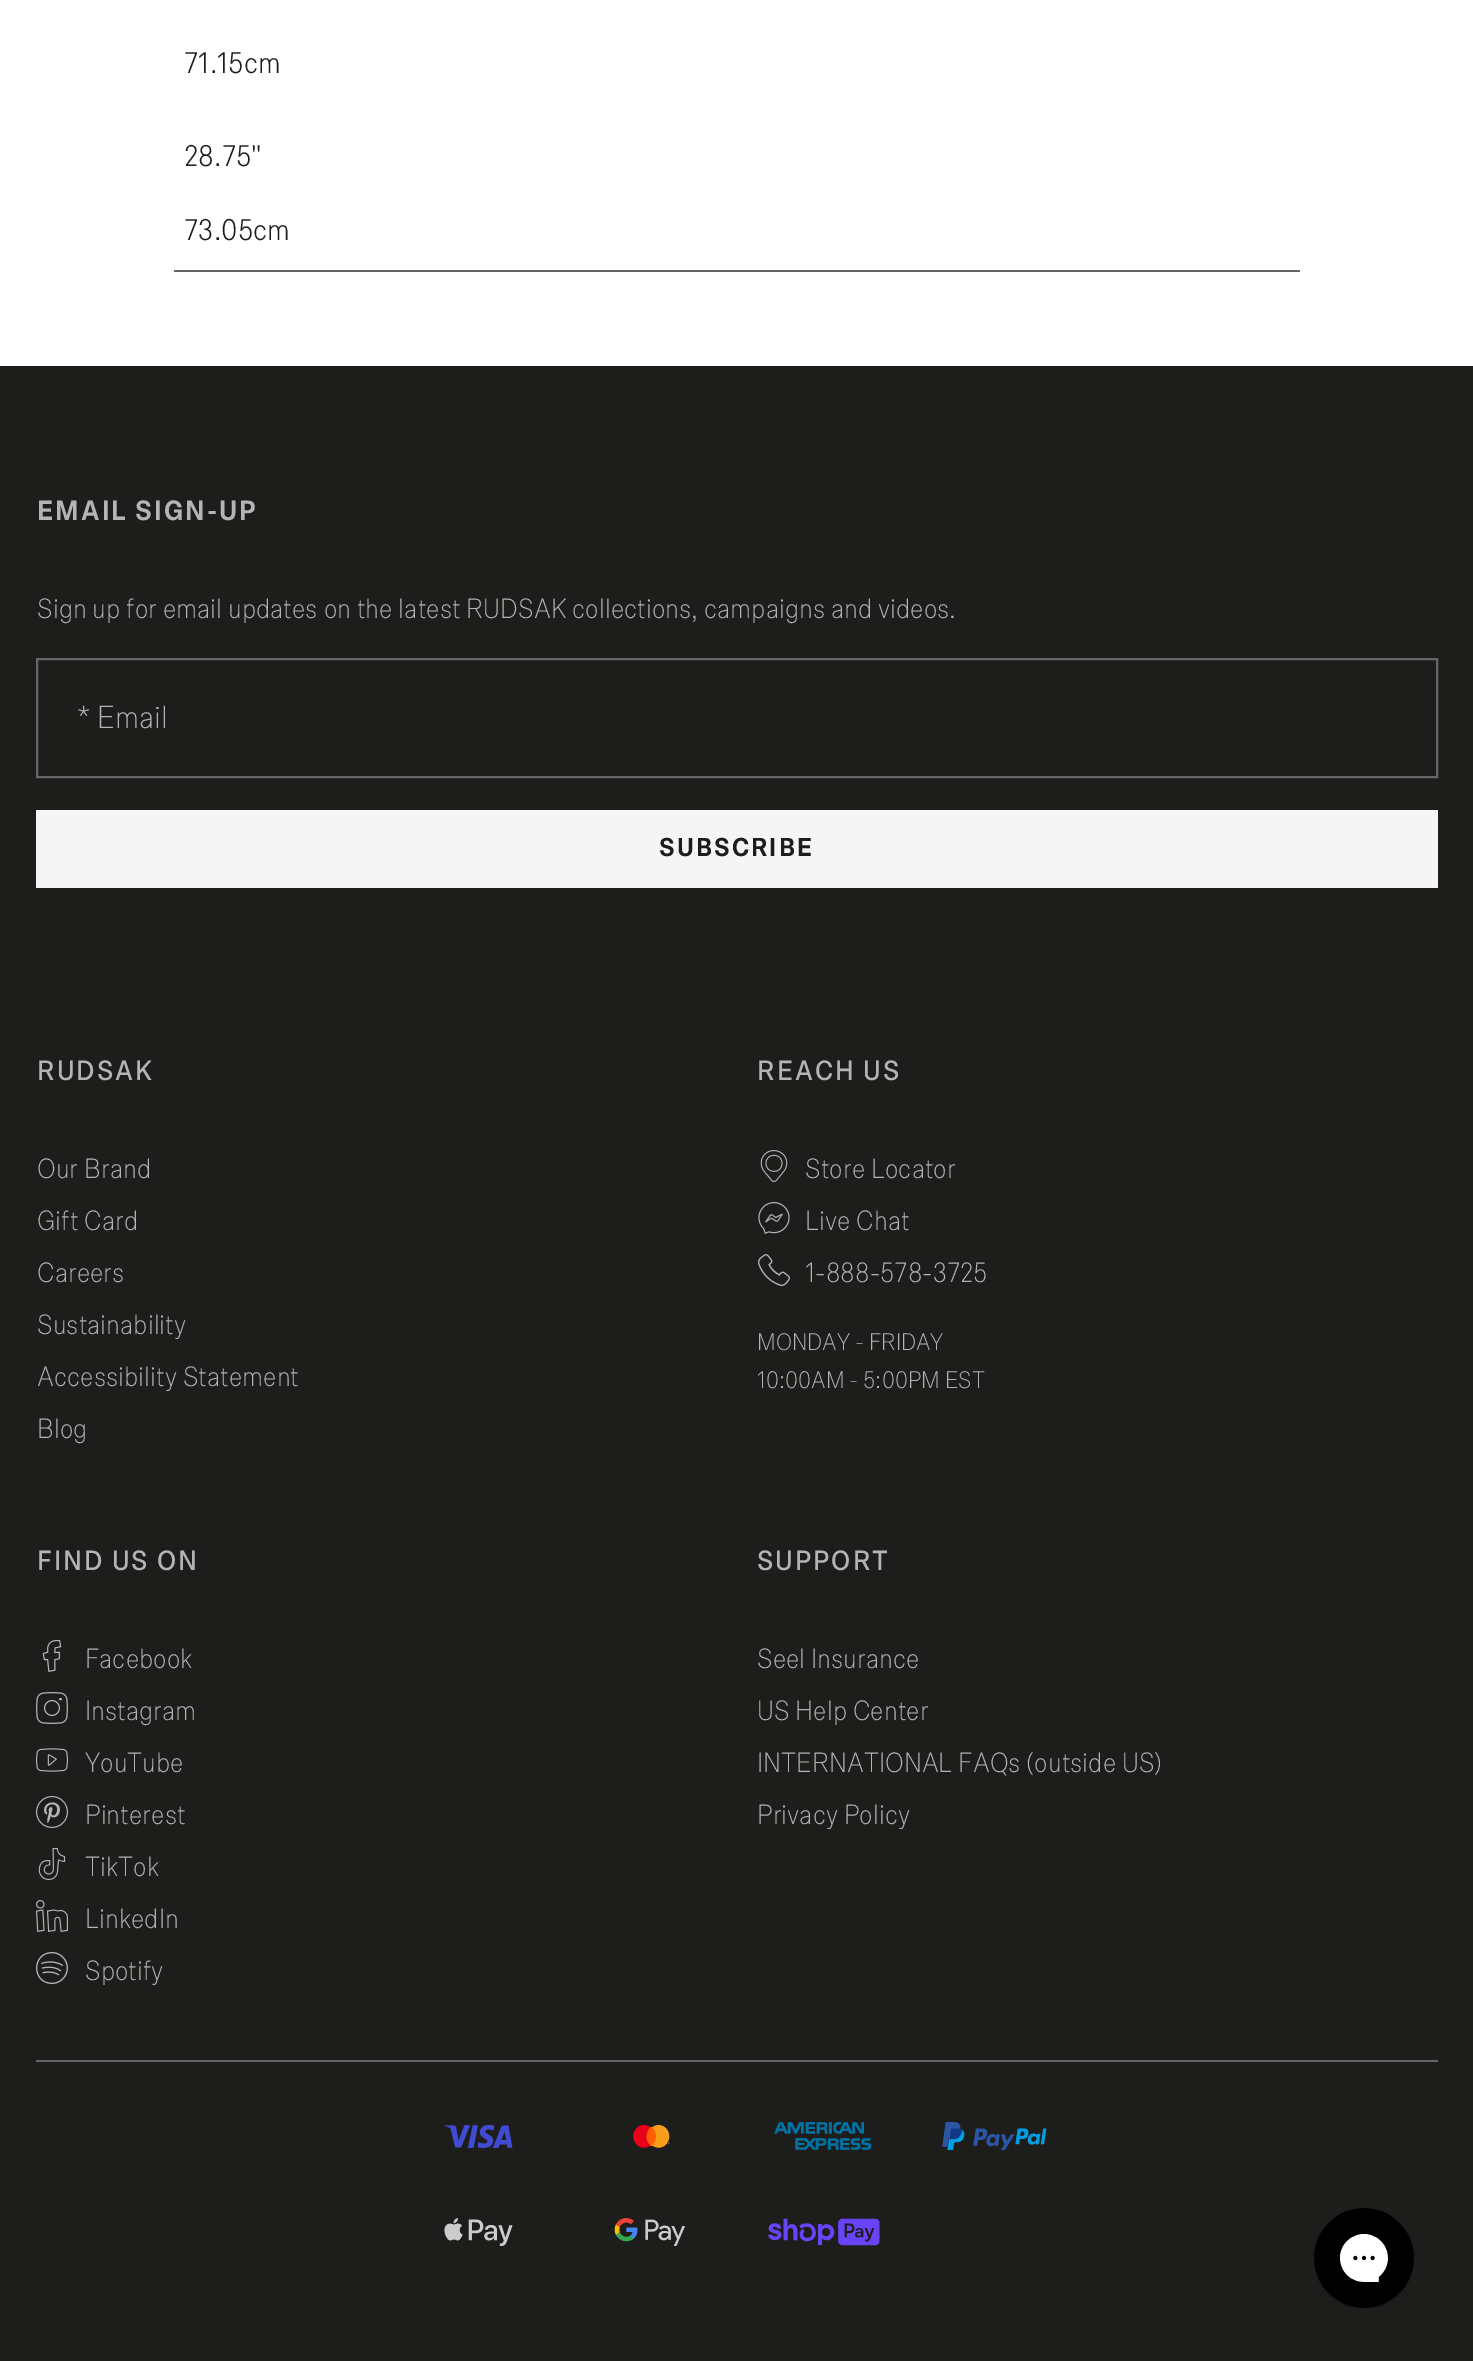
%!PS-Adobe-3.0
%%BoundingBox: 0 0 1473 2361
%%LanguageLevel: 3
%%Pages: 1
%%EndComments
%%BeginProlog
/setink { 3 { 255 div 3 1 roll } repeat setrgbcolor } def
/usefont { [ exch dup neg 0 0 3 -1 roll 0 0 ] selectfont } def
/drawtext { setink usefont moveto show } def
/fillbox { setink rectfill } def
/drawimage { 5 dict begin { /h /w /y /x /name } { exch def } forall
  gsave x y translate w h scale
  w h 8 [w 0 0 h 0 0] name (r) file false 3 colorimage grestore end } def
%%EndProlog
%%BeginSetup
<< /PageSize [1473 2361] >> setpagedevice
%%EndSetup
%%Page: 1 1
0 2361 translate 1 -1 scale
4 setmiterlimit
0 0 1473 2361 255 255 255 fillbox
174 270 1126 2 102 102 102 fillbox
(71.15cm) 184 73 /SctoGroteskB-Light 30 29 29 27 drawtext
(28.75") 184 166 /SctoGroteskB-Light 30 29 29 27 drawtext
(73.05cm) 184 240 /SctoGroteskB-Light 30 29 29 27 drawtext
0 366 1473 1995 29 29 27 fillbox
/SctoGroteskB-Bold 28 usefont
180 180 180 setink
37 520 moveto 2 0 (EMAIL SIGN-UP) ashow
(Sign up for email updates on the latest RUDSAK collections, campaigns and videos.) 37 618 /SctoGroteskB-Thin 28 180 180 180 drawtext
102 102 102 setink
2 setlinewidth
37 659 1400 118 rectstroke
(* Email) 77 728 /SctoGroteskB-Thin 32 180 180 180 drawtext
36 810 1402 78 245 245 245 fillbox
/SctoGroteskB-Bold 26 usefont
29 29 27 setink
659 856 moveto 2 0 (SUBSCRIBE) ashow
/SctoGroteskB-Medium 28 usefont
180 180 180 setink
37 1080 moveto 2 0 (RUDSAK) ashow
(Our Brand) 37 1178 /SctoGroteskB-Thin 28 180 180 180 drawtext
(Gift Card) 37 1230 /SctoGroteskB-Thin 28 180 180 180 drawtext
(Careers) 37 1282 /SctoGroteskB-Thin 28 180 180 180 drawtext
(Sustainability) 37 1334 /SctoGroteskB-Thin 28 180 180 180 drawtext
(Accessibility Statement) 37 1386 /SctoGroteskB-Thin 28 180 180 180 drawtext
(Blog) 37 1438 /SctoGroteskB-Thin 28 180 180 180 drawtext
/SctoGroteskB-Medium 28 usefont
757 1080 moveto 2 0 (REACH US) ashow
(assets/img1.rgb) 760 1150 28 32 drawimage
(Store Locator) 805 1178 /SctoGroteskB-Thin 28 180 180 180 drawtext
(assets/img2.rgb) 758 1202 32 32 drawimage
(Live Chat) 805 1230 /SctoGroteskB-Thin 28 180 180 180 drawtext
(assets/img3.rgb) 758 1254 32 32 drawimage
(1-888-578-3725) 805 1282 /SctoGroteskB-Thin 28 180 180 180 drawtext
(MONDAY - FRIDAY) 757 1350 /SctoGroteskB-Thin 24 180 180 180 drawtext
(10:00AM - 5:00PM EST) 757 1388 /SctoGroteskB-Thin 24 180 180 180 drawtext
/SctoGroteskB-Medium 28 usefont
37 1570 moveto 2 0 (FIND US ON) ashow
(assets/img4.rgb) 42 1640 20 32 drawimage
(Facebook) 85 1668 /SctoGroteskB-Thin 28 180 180 180 drawtext
(assets/img5.rgb) 36 1692 32 32 drawimage
(Instagram) 85 1720 /SctoGroteskB-Thin 28 180 180 180 drawtext
(assets/img6.rgb) 36 1748 32 24 drawimage
(YouTube) 85 1772 /SctoGroteskB-Thin 28 180 180 180 drawtext
(assets/img7.rgb) 36 1796 32 32 drawimage
(Pinterest) 85 1824 /SctoGroteskB-Thin 28 180 180 180 drawtext
(assets/img8.rgb) 38 1848 28 32 drawimage
(TikTok) 85 1876 /SctoGroteskB-Thin 28 180 180 180 drawtext
(assets/img9.rgb) 36 1900 32 32 drawimage
(LinkedIn) 85 1928 /SctoGroteskB-Thin 28 180 180 180 drawtext
(assets/img10.rgb) 36 1952 32 32 drawimage
(Spotify) 85 1980 /SctoGroteskB-Thin 28 180 180 180 drawtext
/SctoGroteskB-Medium 28 usefont
757 1570 moveto 2 0 (SUPPORT) ashow
(Seel Insurance) 757 1668 /SctoGroteskB-Thin 28 180 180 180 drawtext
(US Help Center) 757 1720 /SctoGroteskB-Thin 28 180 180 180 drawtext
(INTERNATIONAL FAQs \(outside US\)) 757 1772 /SctoGroteskB-Thin 28 180 180 180 drawtext
(Privacy Policy) 757 1824 /SctoGroteskB-Thin 28 180 180 180 drawtext
36 2060 1402 2 102 102 102 fillbox
(assets/img11.rgb) 444 2124 69 24 drawimage
(assets/img12.rgb) 633 2124 37 24 drawimage
(assets/img13.rgb) 774 2122 98 28 drawimage
(assets/img14.rgb) 942 2122 105 28 drawimage
(assets/img15.rgb) 444 2218 69 28 drawimage
(assets/img16.rgb) 614 2218 72 28 drawimage
(assets/img17.rgb) 768 2218 112 28 drawimage
(assets/img18.rgb) 1314 2208 100 100 drawimage
showpage
%%EOF
